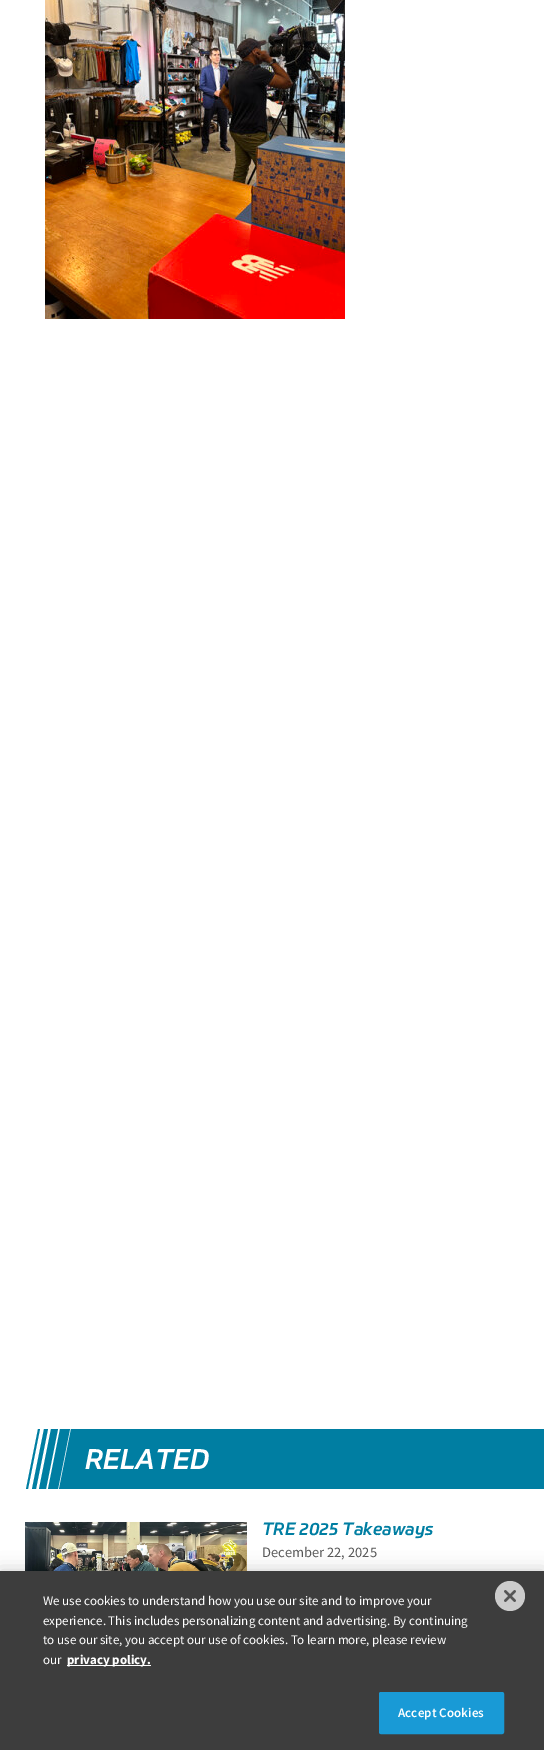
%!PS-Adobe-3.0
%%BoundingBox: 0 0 544 1750
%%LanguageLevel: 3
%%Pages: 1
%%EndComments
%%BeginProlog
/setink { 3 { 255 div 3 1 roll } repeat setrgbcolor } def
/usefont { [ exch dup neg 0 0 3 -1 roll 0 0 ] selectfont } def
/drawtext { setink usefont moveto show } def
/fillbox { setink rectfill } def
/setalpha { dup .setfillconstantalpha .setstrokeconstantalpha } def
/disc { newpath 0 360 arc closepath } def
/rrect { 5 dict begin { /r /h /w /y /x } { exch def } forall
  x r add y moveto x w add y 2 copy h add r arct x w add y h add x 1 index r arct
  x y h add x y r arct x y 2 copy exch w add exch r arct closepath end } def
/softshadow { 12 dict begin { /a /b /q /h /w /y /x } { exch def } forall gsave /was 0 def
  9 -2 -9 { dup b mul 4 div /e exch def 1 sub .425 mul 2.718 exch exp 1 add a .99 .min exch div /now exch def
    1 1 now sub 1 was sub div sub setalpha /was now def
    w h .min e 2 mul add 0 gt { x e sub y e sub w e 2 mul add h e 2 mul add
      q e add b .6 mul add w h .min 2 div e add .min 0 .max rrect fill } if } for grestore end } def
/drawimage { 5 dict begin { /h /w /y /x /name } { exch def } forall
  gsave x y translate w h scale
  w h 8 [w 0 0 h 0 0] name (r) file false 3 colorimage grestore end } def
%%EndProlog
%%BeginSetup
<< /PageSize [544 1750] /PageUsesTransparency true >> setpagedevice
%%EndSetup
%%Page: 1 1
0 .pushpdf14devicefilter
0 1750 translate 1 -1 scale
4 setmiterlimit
0 0 544 1750 255 255 255 fillbox
(assets/img1.rgb) 45 0 300 319 drawimage
0 126 162 setink
71 1429 moveto 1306 1429 lineto 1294 1489 lineto 59 1489 lineto closepath fill
38 1429 moveto 40 1429 lineto 28 1489 lineto 26 1489 lineto closepath fill
44 1429 moveto 48 1429 lineto 36 1489 lineto 32 1489 lineto closepath fill
51 1429 moveto 58 1429 lineto 46 1489 lineto 39 1489 lineto closepath fill
60 1429 moveto 70 1429 lineto 58 1489 lineto 48 1489 lineto closepath fill
(RELATED) 85 1469 /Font-MediumItalic 28 255 255 255 drawtext
(assets/img2.rgb) 25 1522 222 49 drawimage
(TRE 2025 Takeaways) 262 1535 /Font-MediumItalic 17.5 0 126 162 drawtext
(December 22, 2025) 262 1557 /SourceSansPro-Regular 14.5 88 88 88 drawtext
0 0 0 setink
0 1571 544 179 0 9 0.2 softshadow
0 1571 544 179 61 61 61 fillbox
(We use cookies to understand how you use our site and to improve your) 43 1605 /SourceSansPro-Regular 13 255 255 255 drawtext
(experience. This includes personalizing content and advertising. By continuing) 43 1625 /SourceSansPro-Regular 13 255 255 255 drawtext
(to use our site, you accept our use of cookies. To learn more, please review) 43 1644 /SourceSansPro-Regular 13 255 255 255 drawtext
(our) 43 1664 /SourceSansPro-Regular 13 255 255 255 drawtext
67 1665 84 1 255 255 255 fillbox
(privacy policy.) 67 1664 /SourceSansPro-Bold 13 255 255 255 drawtext
25 154 214 setink
379.5 1692.5 124 41 1.5 rrect gsave fill grestore
stroke
/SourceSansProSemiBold-SemiBold 13 usefont
255 255 255 setink
398 1717 moveto 0.1 0 (Accept Cookies) ashow
204 204 204 setink
510 1596 15 disc fill
(assets/img3.rgb) 504 1590 12 12 drawimage
.poppdf14devicefilter showpage
%%EOF
